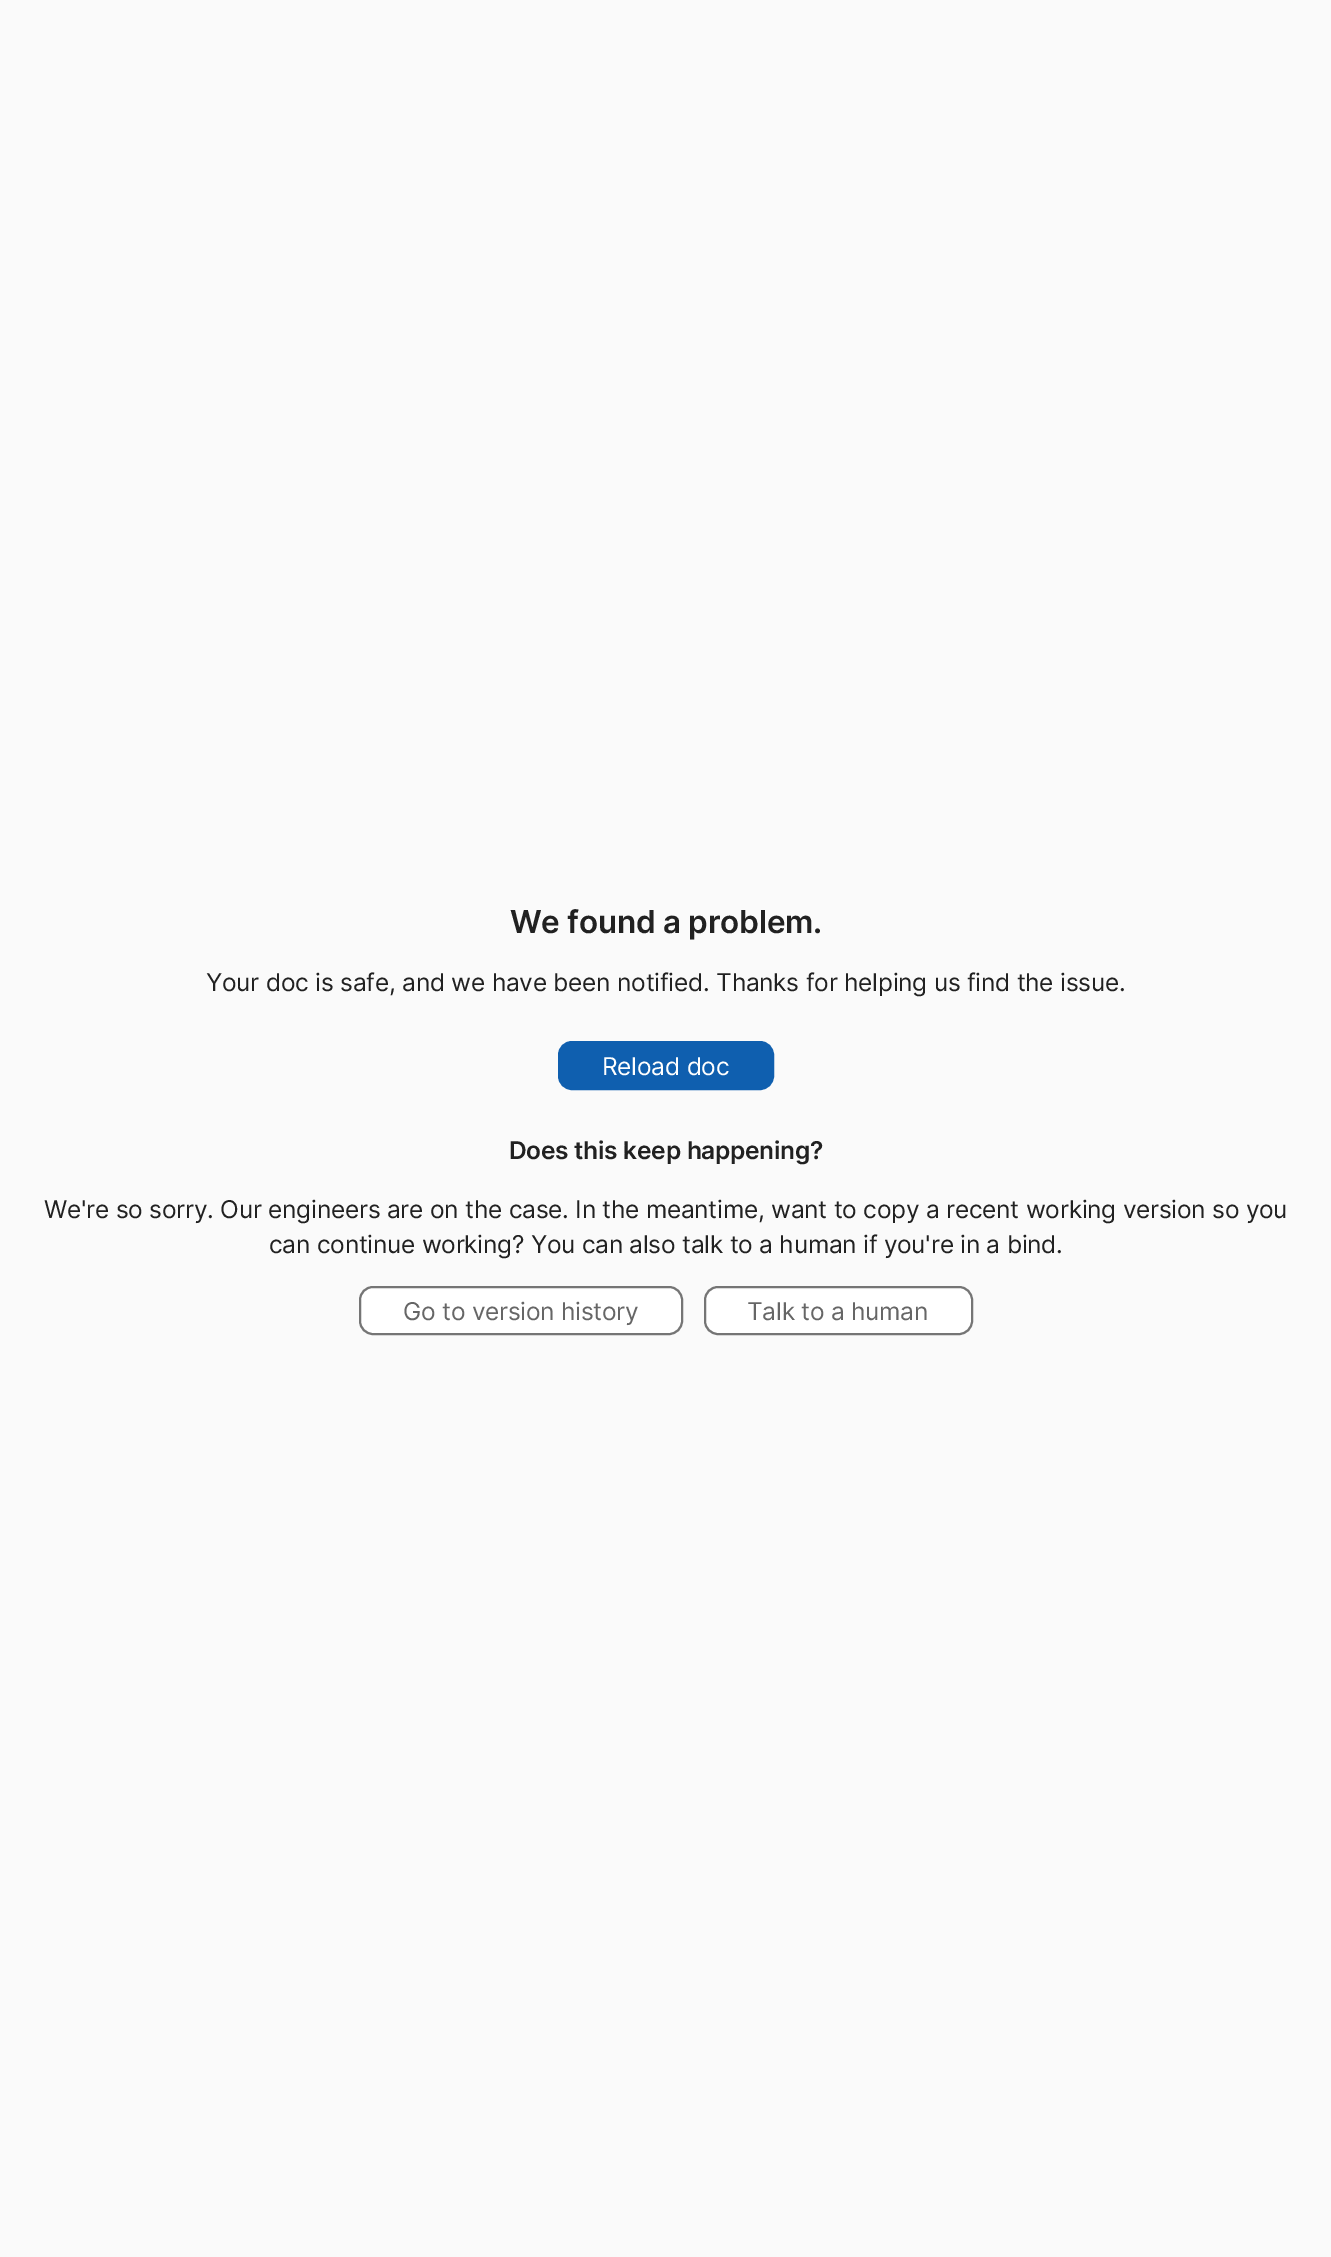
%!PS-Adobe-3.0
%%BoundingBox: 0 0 1331 2257
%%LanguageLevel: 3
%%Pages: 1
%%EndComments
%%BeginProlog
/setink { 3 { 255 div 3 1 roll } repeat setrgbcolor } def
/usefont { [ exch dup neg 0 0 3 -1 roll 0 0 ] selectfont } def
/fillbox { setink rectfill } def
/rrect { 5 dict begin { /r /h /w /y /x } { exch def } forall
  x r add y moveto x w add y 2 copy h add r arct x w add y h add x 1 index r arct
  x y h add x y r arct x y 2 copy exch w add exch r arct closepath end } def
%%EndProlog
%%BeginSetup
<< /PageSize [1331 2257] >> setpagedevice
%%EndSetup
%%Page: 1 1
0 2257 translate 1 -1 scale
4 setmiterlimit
0 0 1331 2257 250 250 250 fillbox
/Inter-SemiBold 31.5 usefont
33 33 33 setink
510 933 moveto -0.25 0 (We found a problem.) ashow
/Inter-Regular 24.5 usefont
206 991 moveto -0.25 0 (Your doc is safe, and we have been notified. Thanks for helping us find the issue.) ashow
15 95 175 setink
559 1042 214 47 13 rrect gsave fill grestore
2 setlinewidth
stroke
255 255 255 setink
602 1075 moveto -0.25 0 (Reload doc) ashow
/Inter-SemiBold 24.5 usefont
33 33 33 setink
509 1159 moveto -0.25 0 (Does this keep happening?) ashow
/Inter-Regular 24.5 usefont
44 1218 moveto -0.25 0 (We're so sorry. Our engineers are on the case. In the meantime, want to copy a recent working version so you) ashow
269 1253 moveto -0.25 0 (can continue working? You can also talk to a human if you're in a bind.) ashow
255 255 255 setink
360 1287 322 47 13 rrect gsave fill grestore
117 117 117 setink
stroke
102 102 102 setink
403 1320 moveto -0.25 0 (Go to version history) ashow
255 255 255 setink
705 1287 267 47 13 rrect gsave fill grestore
117 117 117 setink
stroke
102 102 102 setink
747 1320 moveto -0.25 0 (Talk to a human) ashow
showpage
%%EOF
